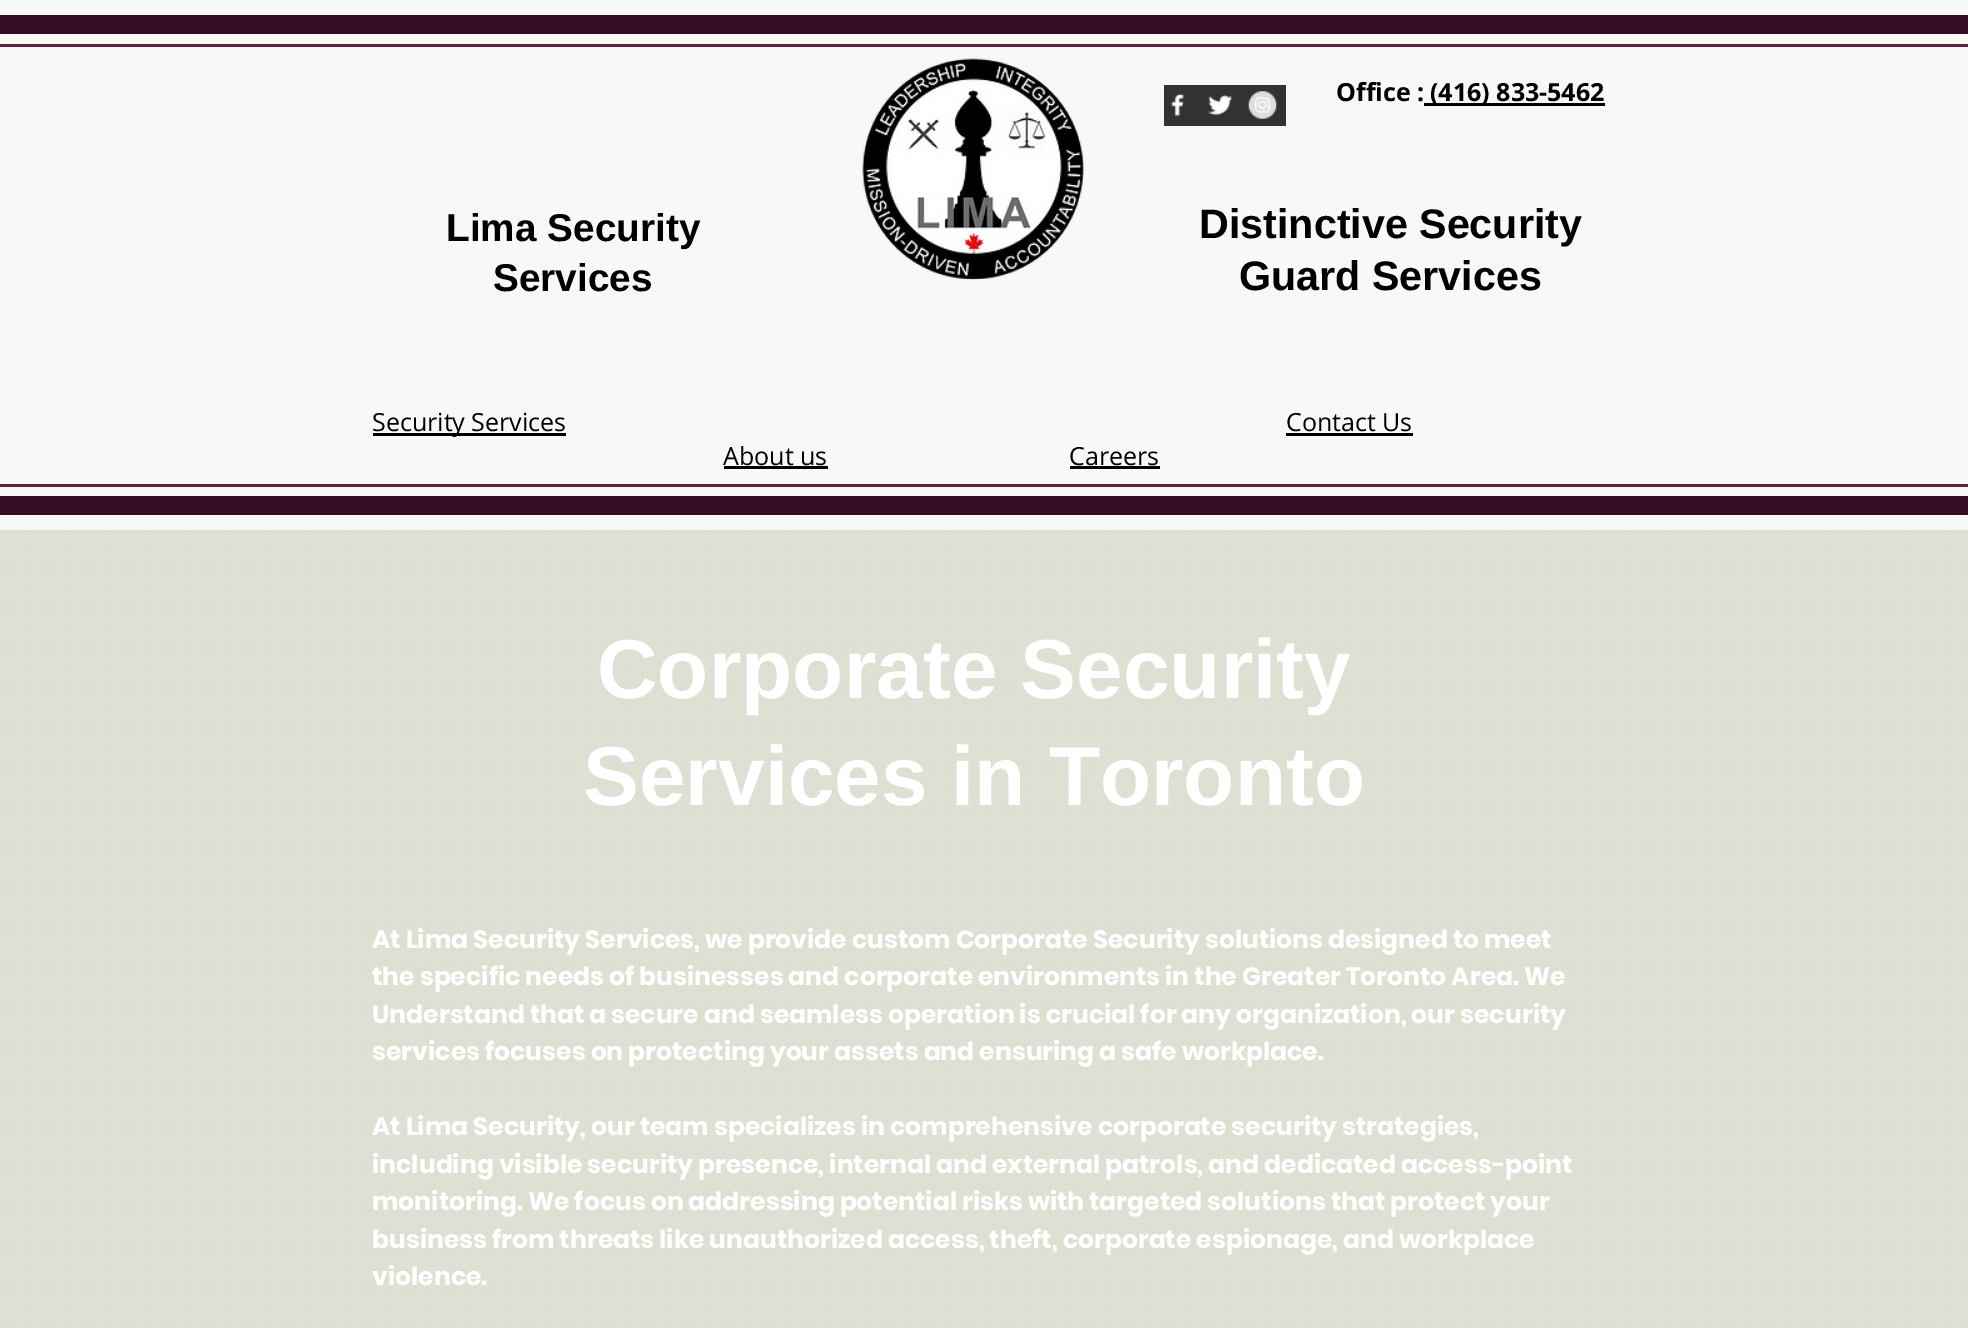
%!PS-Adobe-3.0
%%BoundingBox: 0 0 1968 1328
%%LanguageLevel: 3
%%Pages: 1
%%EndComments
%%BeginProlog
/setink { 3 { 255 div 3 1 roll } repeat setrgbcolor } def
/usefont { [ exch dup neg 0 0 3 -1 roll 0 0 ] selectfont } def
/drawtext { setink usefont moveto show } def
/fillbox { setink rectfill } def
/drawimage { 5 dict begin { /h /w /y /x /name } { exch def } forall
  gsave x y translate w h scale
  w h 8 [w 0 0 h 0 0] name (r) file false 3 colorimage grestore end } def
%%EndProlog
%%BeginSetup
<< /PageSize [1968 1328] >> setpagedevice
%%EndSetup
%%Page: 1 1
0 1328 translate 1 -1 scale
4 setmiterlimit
0 0 1968 1328 220 222 208 fillbox
0 0 1968 530 246 249 245 fillbox
0 15 1968 19 54 13 34 fillbox
0 496 1968 19 54 13 34 fillbox
0 44 1968 3 107 26 69 fillbox
0 484 1968 3 107 26 69 fillbox
(assets/img1.rgb) 862 58 222 222 drawimage
(assets/img2.rgb) 862 58 222 222 drawimage
1164 85 122 41 50 50 50 fillbox
(assets/img3.rgb) 1171 93 13 24 drawimage
(assets/img4.rgb) 1208 95 25 21 drawimage
(assets/img5.rgb) 1248 91 29 28 drawimage
(Office :) 1336 101 /OpenSans-Bold 25 0 0 0 drawtext
1424 103 181 3 0 0 0 fillbox
(\(416\) 833-5462) 1430 101 /OpenSans-Bold 25 0 0 0 drawtext
(Lima Security) 446 241 /LiberationSans-Bold 38.75 0 0 0 drawtext
(Services) 493 291 /LiberationSans-Bold 38.75 0 0 0 drawtext
(Distinctive Security) 1199 238 /LiberationSans-Bold 41.25 0 0 0 drawtext
(Guard Services) 1239 290 /LiberationSans-Bold 41.25 0 0 0 drawtext
373 433 193 3 0 0 0 fillbox
(Security Services) 372 431 /OpenSans-Regular 25 0 0 0 drawtext
(Contact Us) 1286 431 /OpenSans-Regular 25 0 0 0 drawtext
1286 433 127 3 0 0 0 fillbox
(About us) 723 465 /OpenSans-Regular 25 0 0 0 drawtext
724 466 104 3 0 0 0 fillbox
(Careers) 1069 465 /OpenSans-Regular 25 0 0 0 drawtext
1070 466 90 3 0 0 0 fillbox
(assets/img6.rgb) 0 530 1968 798 drawimage
(Corporate Security) 597 698 /LiberationSans-Bold 83.75 255 255 255 drawtext
(Services in Toronto) 583 805 /LiberationSans-Bold 83.75 255 255 255 drawtext
(At Lima Security Services, we provide custom Corporate Security solutions designed to meet) 372 948 /Poppins-Bold 25 255 255 255 drawtext
(the specific needs of businesses and corporate environments in the Greater Toronto Area. We) 372 985 /Poppins-Bold 25 255 255 255 drawtext
(Understand that a secure and seamless operation is crucial for any organization, our security) 372 1023 /Poppins-Bold 25 255 255 255 drawtext
(services focuses on protecting your assets and ensuring a safe workplace.) 372 1060 /Poppins-Bold 25 255 255 255 drawtext
(At Lima Security, our team specializes in comprehensive corporate security strategies,) 372 1135 /Poppins-Bold 25 255 255 255 drawtext
(including visible security presence, internal and external patrols, and dedicated access-point) 372 1173 /Poppins-Bold 25 255 255 255 drawtext
(monitoring. We focus on addressing potential risks with targeted solutions that protect your) 372 1210 /Poppins-Bold 25 255 255 255 drawtext
(business from threats like unauthorized access, theft, corporate espionage, and workplace) 372 1248 /Poppins-Bold 25 255 255 255 drawtext
(violence.) 372 1285 /Poppins-Bold 25 255 255 255 drawtext
showpage
%%EOF
